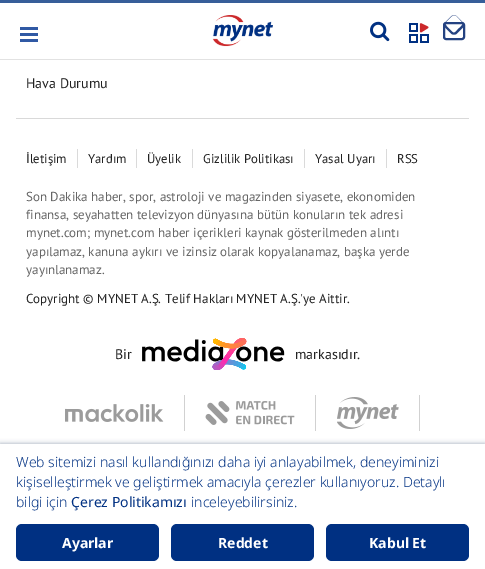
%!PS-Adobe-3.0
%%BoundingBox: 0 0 485 569
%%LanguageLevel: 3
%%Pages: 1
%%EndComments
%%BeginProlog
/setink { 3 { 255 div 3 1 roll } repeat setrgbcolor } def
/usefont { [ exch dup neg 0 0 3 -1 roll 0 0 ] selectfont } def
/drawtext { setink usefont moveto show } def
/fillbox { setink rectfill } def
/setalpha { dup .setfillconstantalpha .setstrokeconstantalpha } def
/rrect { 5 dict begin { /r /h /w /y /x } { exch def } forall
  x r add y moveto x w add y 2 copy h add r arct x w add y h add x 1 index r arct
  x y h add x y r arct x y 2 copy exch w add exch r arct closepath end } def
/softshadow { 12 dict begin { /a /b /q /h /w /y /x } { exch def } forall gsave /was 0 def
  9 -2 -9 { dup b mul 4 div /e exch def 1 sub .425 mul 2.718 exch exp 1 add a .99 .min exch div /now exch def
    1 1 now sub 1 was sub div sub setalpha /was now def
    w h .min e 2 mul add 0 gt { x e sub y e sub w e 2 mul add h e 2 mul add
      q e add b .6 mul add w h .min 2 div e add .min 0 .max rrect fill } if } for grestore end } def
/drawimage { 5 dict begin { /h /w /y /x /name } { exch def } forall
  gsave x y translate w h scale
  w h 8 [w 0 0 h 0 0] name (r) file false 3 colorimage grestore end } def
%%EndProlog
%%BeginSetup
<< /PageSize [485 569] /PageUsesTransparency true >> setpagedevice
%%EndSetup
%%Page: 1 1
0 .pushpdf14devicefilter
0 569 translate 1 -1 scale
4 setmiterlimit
0 0 485 569 255 255 255 fillbox
0 0 485 3 55 94 153 fillbox
0 59 485 1 226 226 226 fillbox
20 27 18 3 48 89 164 fillbox
20 33 18 3 48 89 164 fillbox
20 39 18 3 48 89 164 fillbox
(assets/img1.rgb) 212 15 61 32 drawimage
(assets/img2.rgb) 370 21 20 21 drawimage
(assets/img3.rgb) 409 23 20 20 drawimage
36 66 129 setink
2 setlinewidth
444 23 20 16 2 rrect stroke
457 16.5 moveto 462.5 22 lineto 464 23.5 464 26.5 462.5 28 curveto 457 33.5 lineto 455.5 35 452.5 35 451 33.5 curveto 445.5 28 lineto 444 26.5 444 23.5 445.5 22 curveto 451 16.5 lineto 452.5 15 455.5 15 457 16.5 curveto closepath 457 16.5 moveto 462.5 22.5 lineto 463.5 24.5 459.5 28 458 29 curveto 457 30.5 454.5 34 452.5 32 curveto 450.5 30 446 26.5 445.5 24 curveto 445.5 22.5 lineto 448.5 19.5 lineto 450.5 17 453.5 13.5 457 16.5 curveto closepath eofill
16 118 453 1 217 217 217 fillbox
(Hava Durumu) 26 88 /PTSans-Regular 14 34 34 34 drawtext
77 149 1 19 218 218 218 fillbox
(İletişim) 26 163 /PTSans-Regular 12.75 34 34 34 drawtext
136 149 1 19 218 218 218 fillbox
(Yardım) 88 163 /PTSans-Regular 12.75 34 34 34 drawtext
192 149 1 19 218 218 218 fillbox
(Üyelik) 147 163 /PTSans-Regular 12.75 34 34 34 drawtext
304 149 1 19 218 218 218 fillbox
(Gizlilik Politikası) 203 163 /PTSans-Regular 12.75 34 34 34 drawtext
386 149 1 19 218 218 218 fillbox
(Yasal Uyarı) 315 163 /PTSans-Regular 12.75 34 34 34 drawtext
(RSS) 397 163 /PTSans-Regular 12.75 34 34 34 drawtext
(Son Dakika haber, spor, astroloji ve magazinden siyasete, ekonomiden) 26 201 /PTSans-Regular 13 102 102 102 drawtext
(finansa, seyahatten televizyon dünyasına bütün konuların tek adresi) 26 219 /PTSans-Regular 13 102 102 102 drawtext
(mynet.com; mynet.com haber içerikleri kaynak gösterilmeden alıntı) 26 237 /PTSans-Regular 13 102 102 102 drawtext
(yapılamaz, kanuna aykırı ve izinsiz olarak kopyalanamaz, başka yerde) 26 256 /PTSans-Regular 13 102 102 102 drawtext
(yayınlanamaz.) 26 274 /PTSans-Regular 13 102 102 102 drawtext
(Copyright © MYNET A.Ş. Telif Hakları MYNET A.Ş.'ye Aittir.) 26 303 /PTSans-Regular 13 34 34 34 drawtext
(Bir) 115 359 /PTSans-Regular 14 34 34 34 drawtext
(assets/img4.rgb) 142 338 143 32 drawimage
(markasıdır.) 295 359 /PTSans-Regular 14 34 34 34 drawtext
184 395 1 36 209 209 209 fillbox
(assets/img5.rgb) 65 404 99 18 drawimage
315 395 1 36 209 209 209 fillbox
(assets/img6.rgb) 205 401 90 24 drawimage
419 395 1 36 209 209 209 fillbox
(assets/img7.rgb) 337 397 62 32 drawimage
155 167 183 setink
0 444 485 125 0 2.5 1 softshadow
0 444 485 125 255 255 255 fillbox
(Web sitemizi nasıl kullandığınızı daha iyi anlayabilmek, deneyiminizi) 16 467 /NotoSans-Light 14 0 48 130 drawtext
(kişiselleştirmek ve geliştirmek amacıyla çerezler kullanıyoruz. Detaylı) 16 487 /NotoSans-Light 14 0 48 130 drawtext
(bilgi için) 16 507 /NotoSans-Light 14 0 48 130 drawtext
(Çerez Politikamızı) 71 507 /NotoSans-Regular 14 0 48 130 drawtext
(inceleyebilirsiniz.) 191 507 /NotoSans-Light 14 0 48 130 drawtext
16 524 143 37 6 rrect fill
(Ayarlar) 62 548 /NotoSans-Bold 14 255 255 255 drawtext
0 48 130 setink
171 524 143 37 6 rrect fill
(Reddet) 218 548 /NotoSans-Bold 14 255 255 255 drawtext
0 48 130 setink
326 524 143 37 6 rrect fill
(Kabul Et) 369 548 /NotoSans-Bold 14 255 255 255 drawtext
.poppdf14devicefilter showpage
%%EOF
